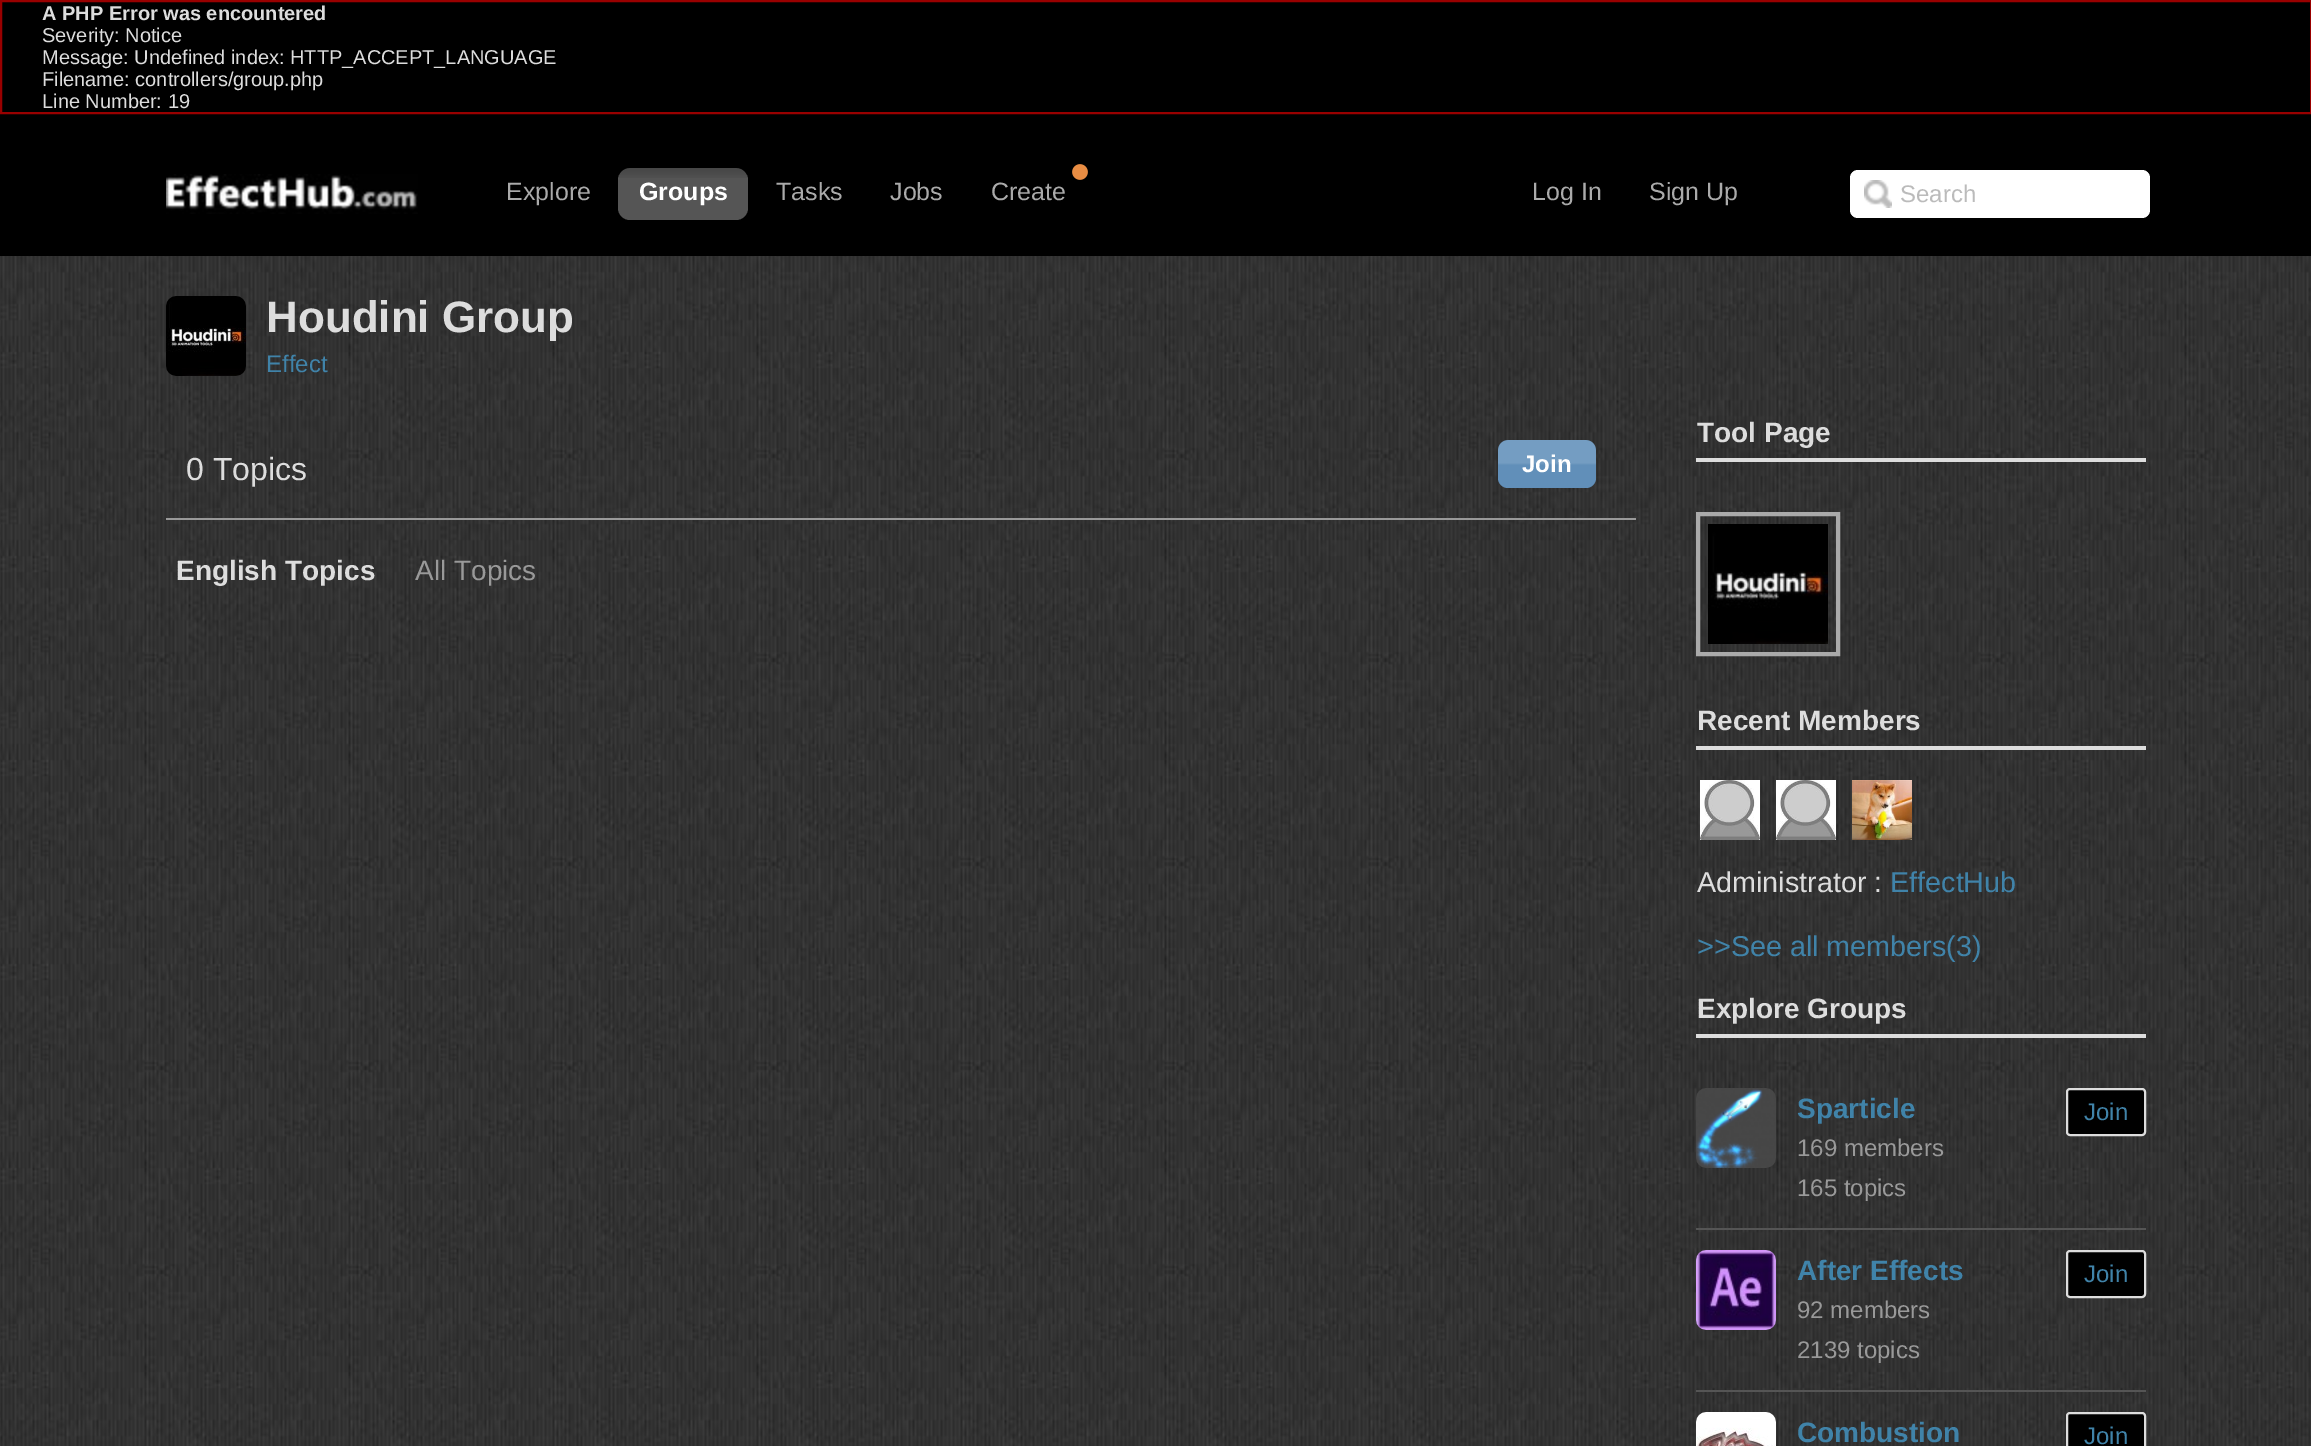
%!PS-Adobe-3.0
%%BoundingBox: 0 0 2311 1446
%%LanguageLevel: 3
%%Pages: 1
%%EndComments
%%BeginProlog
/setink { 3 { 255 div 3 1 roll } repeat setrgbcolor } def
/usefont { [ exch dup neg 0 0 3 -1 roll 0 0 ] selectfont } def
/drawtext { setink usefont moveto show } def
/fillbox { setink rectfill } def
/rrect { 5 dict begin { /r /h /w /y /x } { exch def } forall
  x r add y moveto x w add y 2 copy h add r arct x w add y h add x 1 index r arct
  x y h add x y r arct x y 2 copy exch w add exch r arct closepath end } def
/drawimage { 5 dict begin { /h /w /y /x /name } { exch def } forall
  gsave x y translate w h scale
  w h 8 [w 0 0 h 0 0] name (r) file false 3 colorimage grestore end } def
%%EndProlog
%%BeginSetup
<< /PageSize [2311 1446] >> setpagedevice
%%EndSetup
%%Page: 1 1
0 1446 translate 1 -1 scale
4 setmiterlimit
0 0 2311 1446 0 0 0 fillbox
153 0 0 setink
2 setlinewidth
1 1 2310 112 rectstroke
(A PHP Error was encountered) 42 20 /LiberationSans-Bold 20 221 221 221 drawtext
(Severity: Notice) 42 42 /LiberationSans-Regular 20 221 221 221 drawtext
(Message: Undefined index: HTTP_ACCEPT_LANGUAGE) 42 64 /LiberationSans-Regular 20 221 221 221 drawtext
(Filename: controllers/group.php) 42 86 /LiberationSans-Regular 20 221 221 221 drawtext
(Line Number: 19) 42 108 /LiberationSans-Regular 20 221 221 221 drawtext
(assets/img1.rgb) 166 174 252 40 drawimage
(Explore) 506 200 /LiberationSans-Regular 25 170 170 170 drawtext
85 85 85 setink
618 168 130 52 12 rrect fill
(assets/img2.rgb) 619 168 128 10 drawimage
(Groups) 639 200 /LiberationSans-Bold 25 255 255 255 drawtext
(Tasks) 776 200 /LiberationSans-Regular 25 170 170 170 drawtext
(Jobs) 890 200 /LiberationSans-Regular 25 170 170 170 drawtext
(assets/img3.rgb) 1072 164 16 16 drawimage
(Create) 991 200 /LiberationSans-Regular 25 170 170 170 drawtext
(Log In) 1532 200 /LiberationSans-Regular 25 170 170 170 drawtext
(Sign Up) 1649 200 /LiberationSans-Regular 25 170 170 170 drawtext
255 255 255 setink
1850 170 300 48 8 rrect fill
(assets/img4.rgb) 1864 180 28 28 drawimage
(Search) 1900 202 /LiberationSans-Regular 24 187 187 187 drawtext
(assets/img5.rgb) 0 256 2311 1190 drawimage
(assets/img6.rgb) 166 296 80 80 drawimage
(Houdini Group) 266 332 /LiberationSans-Bold 44 221 221 221 drawtext
(Effect) 266 372 /LiberationSans-Regular 24 64 131 169 drawtext
166 518 1470 2 153 153 153 fillbox
(0 Topics) 186 480 /LiberationSans-Regular 32 221 221 221 drawtext
97 143 185 setink
1498 440 98 48 10 rrect fill
(assets/img7.rgb) 1498 440 98 25 drawimage
(Join) 1522 472 /LiberationSans-Bold 24 255 255 255 drawtext
(English Topics) 176 580 /LiberationSans-Bold 28 221 221 221 drawtext
(All Topics) 415 580 /LiberationSans-Regular 28 153 153 153 drawtext
1696 458 450 4 221 221 221 fillbox
(Tool Page) 1697 442 /LiberationSans-Bold 28 221 221 221 drawtext
170 170 170 setink
4 setlinewidth
1698 514 140 140 rectstroke
(assets/img8.rgb) 1708 524 120 120 drawimage
1696 746 450 4 221 221 221 fillbox
(Recent Members) 1697 730 /LiberationSans-Bold 28 221 221 221 drawtext
(assets/img9.rgb) 1700 780 60 60 drawimage
(assets/img9.rgb) 1776 780 60 60 drawimage
(assets/img10.rgb) 1852 780 60 60 drawimage
(Administrator :) 1697 892 /LiberationSans-Regular 28.75 221 221 221 drawtext
(EffectHub) 1890 892 /LiberationSans-Regular 28.75 64 131 169 drawtext
(>>See all members\(3\)) 1697 956 /LiberationSans-Regular 28.75 64 131 169 drawtext
1696 1034 450 4 221 221 221 fillbox
(Explore Groups) 1697 1018 /LiberationSans-Bold 28 221 221 221 drawtext
1696 1228 450 2 85 85 85 fillbox
(assets/img11.rgb) 1696 1088 80 80 drawimage
(Sparticle) 1797 1118 /LiberationSans-Bold 28 64 131 169 drawtext
(169 members) 1797 1156 /LiberationSans-Regular 24 153 153 153 drawtext
(165 topics) 1797 1196 /LiberationSans-Regular 24 153 153 153 drawtext
0 0 0 setink
2067 1089 78 46 3 rrect gsave fill grestore
221 221 221 setink
2 setlinewidth
stroke
(Join) 2084 1120 /LiberationSans-Regular 24 64 131 169 drawtext
1696 1390 450 2 85 85 85 fillbox
(assets/img12.rgb) 1696 1250 80 80 drawimage
(After Effects) 1797 1280 /LiberationSans-Bold 28 64 131 169 drawtext
(92 members) 1797 1318 /LiberationSans-Regular 24 153 153 153 drawtext
(2139 topics) 1797 1358 /LiberationSans-Regular 24 153 153 153 drawtext
0 0 0 setink
2067 1251 78 46 3 rrect gsave fill grestore
221 221 221 setink
stroke
(Join) 2084 1282 /LiberationSans-Regular 24 64 131 169 drawtext
(assets/img13.rgb) 1696 1412 80 34 drawimage
(Combustion) 1797 1442 /LiberationSans-Bold 28 64 131 169 drawtext
0 0 0 setink
2067 1413 78 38 3 rrect gsave fill grestore
221 221 221 setink
stroke
(Join) 2084 1444 /LiberationSans-Regular 24 64 131 169 drawtext
showpage
%%EOF
